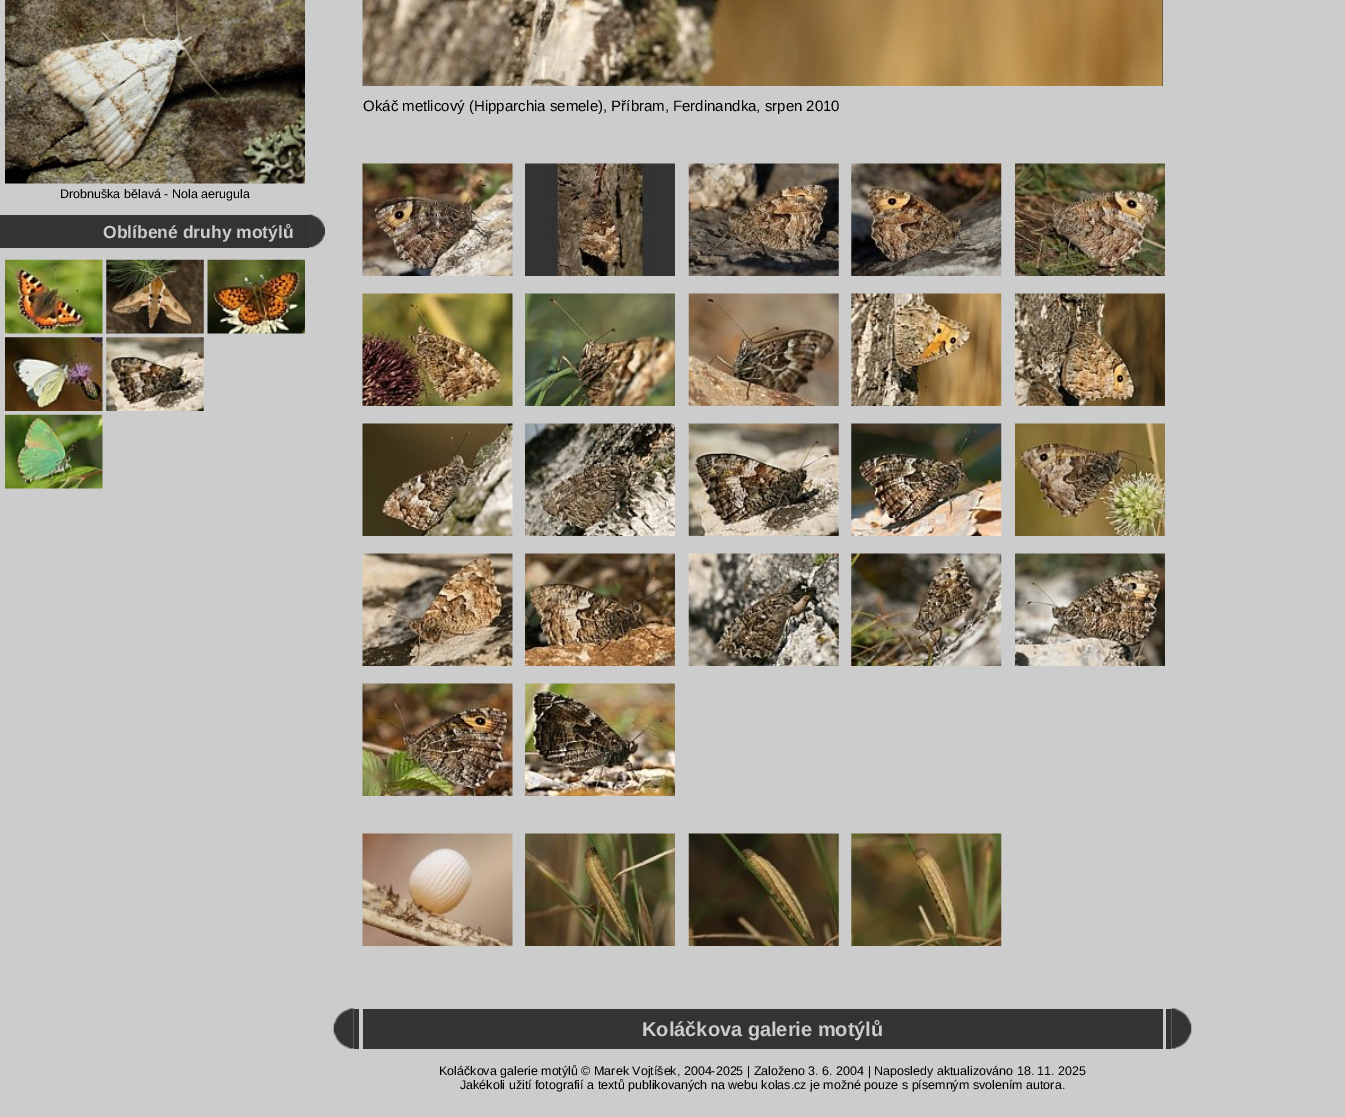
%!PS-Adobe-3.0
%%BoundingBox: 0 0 1345 1117
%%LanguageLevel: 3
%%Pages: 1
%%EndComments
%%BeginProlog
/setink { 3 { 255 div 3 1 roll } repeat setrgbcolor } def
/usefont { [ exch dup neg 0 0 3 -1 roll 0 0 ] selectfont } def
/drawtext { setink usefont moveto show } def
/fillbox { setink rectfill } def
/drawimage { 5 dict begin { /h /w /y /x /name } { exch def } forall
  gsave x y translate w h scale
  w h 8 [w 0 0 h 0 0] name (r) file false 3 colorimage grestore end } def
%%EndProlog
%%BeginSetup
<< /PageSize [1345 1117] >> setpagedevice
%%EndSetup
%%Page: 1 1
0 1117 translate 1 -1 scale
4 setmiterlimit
0 0 1345 1117 204 204 204 fillbox
1162 0 1 86 51 51 51 fillbox
(assets/img1.rgb) 362 0 801 86 drawimage
(Okáč metlicový \(Hipparchia semele\), Příbram, Ferdinandka, srpen 2010) 363 111 /LiberationSans-Regular 15 0 0 0 drawtext
(assets/img2.rgb) 5 0 300 184 drawimage
(Drobnuška bělavá - Nola aerugula) 60 198 /LiberationSans-Regular 12.5 0 0 0 drawtext
0 215 309 33 51 51 51 fillbox
(Oblíbené druhy motýlů) 103 238 /LiberationSans-Bold 17.5 204 204 204 drawtext
(assets/img3.rgb) 308 214 17 34 drawimage
(assets/img4.rgb) 5 259 98 75 drawimage
(assets/img5.rgb) 106 259 98 75 drawimage
(assets/img6.rgb) 207 259 98 75 drawimage
(assets/img7.rgb) 5 337 98 74 drawimage
(assets/img8.rgb) 106 337 98 74 drawimage
(assets/img9.rgb) 5 414 98 75 drawimage
(assets/img10.rgb) 362 163 151 113 drawimage
(assets/img11.rgb) 525 163 150 113 drawimage
(assets/img12.rgb) 688 163 151 113 drawimage
(assets/img13.rgb) 851 163 151 113 drawimage
(assets/img14.rgb) 1015 163 150 113 drawimage
(assets/img15.rgb) 362 293 151 113 drawimage
(assets/img16.rgb) 525 293 150 113 drawimage
(assets/img17.rgb) 688 293 151 113 drawimage
(assets/img18.rgb) 851 293 151 113 drawimage
(assets/img19.rgb) 1015 293 150 113 drawimage
(assets/img20.rgb) 362 423 151 113 drawimage
(assets/img21.rgb) 525 423 150 113 drawimage
(assets/img22.rgb) 688 423 151 113 drawimage
(assets/img23.rgb) 851 423 151 113 drawimage
(assets/img24.rgb) 1015 423 150 113 drawimage
(assets/img25.rgb) 362 553 151 113 drawimage
(assets/img26.rgb) 525 553 150 113 drawimage
(assets/img27.rgb) 688 553 151 113 drawimage
(assets/img28.rgb) 851 553 151 113 drawimage
(assets/img29.rgb) 1015 553 150 113 drawimage
(assets/img30.rgb) 362 683 151 113 drawimage
(assets/img31.rgb) 525 683 150 113 drawimage
(assets/img32.rgb) 362 833 151 113 drawimage
(assets/img33.rgb) 525 833 150 113 drawimage
(assets/img34.rgb) 688 833 151 113 drawimage
(assets/img35.rgb) 851 833 151 113 drawimage
354 1009 5 40 51 51 51 fillbox
(assets/img36.rgb) 333 1008 21 41 drawimage
363 1009 800 40 51 51 51 fillbox
(Koláčkova galerie motýlů) 642 1036 /LiberationSans-Bold 20 204 204 204 drawtext
1166 1009 5 40 51 51 51 fillbox
(assets/img37.rgb) 1171 1008 21 41 drawimage
(Koláčkova galerie motýlů © Marek Vojtíšek, 2004-2025 | Založeno 3. 6. 2004 | Naposledy aktualizováno 18. 11. 2025) 439 1075 /LiberationSans-Regular 12.5 0 0 0 drawtext
(Jakékoli užití fotografií a textů publikovaných na webu kolas.cz je možné pouze s písemným svolením autora.) 460 1089 /LiberationSans-Regular 12.5 0 0 0 drawtext
showpage
%%EOF
